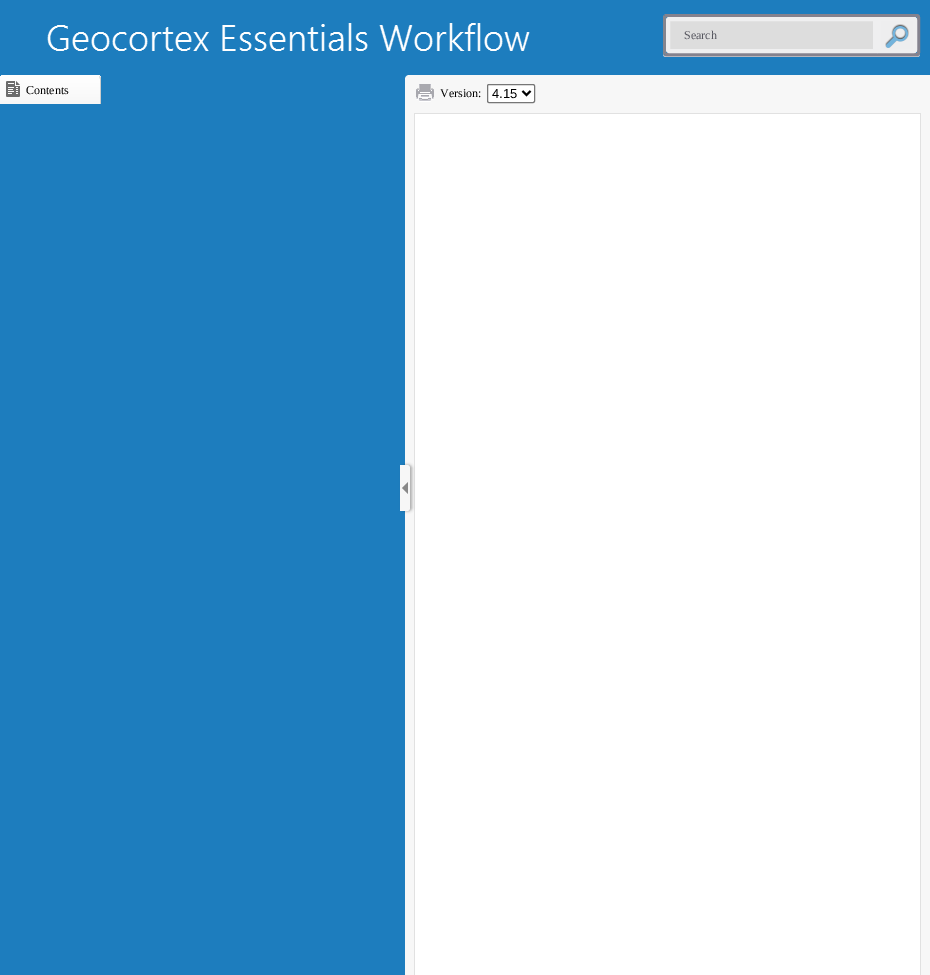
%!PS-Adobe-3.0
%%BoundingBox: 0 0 930 975
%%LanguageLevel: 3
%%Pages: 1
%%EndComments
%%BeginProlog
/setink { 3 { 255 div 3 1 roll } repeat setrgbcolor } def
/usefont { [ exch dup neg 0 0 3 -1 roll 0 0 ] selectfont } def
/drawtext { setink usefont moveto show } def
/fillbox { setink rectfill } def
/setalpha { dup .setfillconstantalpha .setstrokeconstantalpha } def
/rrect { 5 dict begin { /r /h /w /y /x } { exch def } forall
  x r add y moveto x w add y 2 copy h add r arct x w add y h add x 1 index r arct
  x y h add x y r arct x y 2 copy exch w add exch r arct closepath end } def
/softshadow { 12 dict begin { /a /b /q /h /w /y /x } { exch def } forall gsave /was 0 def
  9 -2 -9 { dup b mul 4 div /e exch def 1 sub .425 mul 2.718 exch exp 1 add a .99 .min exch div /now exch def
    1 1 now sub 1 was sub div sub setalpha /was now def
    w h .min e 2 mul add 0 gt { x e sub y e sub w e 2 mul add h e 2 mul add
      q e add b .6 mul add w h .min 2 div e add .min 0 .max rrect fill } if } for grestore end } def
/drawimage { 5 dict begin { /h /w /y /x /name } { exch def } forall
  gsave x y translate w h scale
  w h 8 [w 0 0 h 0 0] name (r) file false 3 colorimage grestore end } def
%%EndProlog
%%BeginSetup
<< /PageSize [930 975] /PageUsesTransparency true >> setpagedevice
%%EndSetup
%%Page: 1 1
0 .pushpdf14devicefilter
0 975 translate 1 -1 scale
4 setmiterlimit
0 0 930 975 29 125 190 fillbox
(assets/img1.rgb) 47 23 483 28 drawimage
202 201 206 setink
663 53 moveto 663 54 lineto 663 56 664 57 666 57 curveto 917 57 lineto 919 57 920 56 920 54 curveto 920 53 lineto 920 55 919 56 917 56 curveto 666 56 lineto 664 56 663 55 663 53 curveto closepath fill
132 130 142 setink
3 setlinewidth
665 16 moveto 666 15.5 lineto 917 15.5 lineto 919.5 15.5 918.5 20 918.5 23 curveto 918.5 47 lineto 918.5 50 919.5 54.5 917 54.5 curveto 666 54.5 lineto 665 54 lineto stroke
132 133 142 setink
665 54 moveto 664.5 53 lineto 664.5 17 lineto 665 16 lineto stroke
221 221 221 setink
669 19 moveto 875 19 lineto 875 51 lineto 669 51 lineto 668.5 51 668 50.5 668 50 curveto 668 20 lineto 668 19.5 668.5 19 669 19 curveto closepath gsave fill grestore
239 239 240 setink
4 setlinewidth
stroke
(Search) 684 39 /LiberationSerif-Regular 12 86 86 95 drawtext
238 238 239 setink
877 17 moveto 914 17 lineto 915.5 17 917 18.5 917 20 curveto 917 50 lineto 917 51.5 915.5 53 914 53 curveto 877 53 lineto closepath fill
(assets/img2.rgb) 885 24 24 24 drawimage
239 239 240 setink
879 19 moveto 914 19 lineto 914.5 19 915 19.5 915 20 curveto 915 50 lineto 915 50.5 914.5 51 914 51 curveto 879 51 lineto closepath stroke
gsave
4 75 moveto 97 75 lineto 99 75 101 77 101 79 curveto 101 104 lineto 0 104 lineto 0 79 lineto 0 77 2 75 4 75 curveto closepath clip newpath
gsave 0 75 moveto 101 75 lineto 101 76 lineto 0 76 lineto closepath clip newpath
<< /ShadingType 2 /ColorSpace /DeviceRGB /Coords [50 48 50 76] /Extend [true true] /Function << /FunctionType 2 /Domain [0 1] /C0 [1 1 1] /C1 [0.969 0.969 0.969] /N 1 >> >> shfill grestore
gsave 0 76 moveto 101 76 lineto 101 104 lineto 0 104 lineto closepath clip newpath
<< /ShadingType 2 /ColorSpace /DeviceRGB /Coords [50 76 50 104] /Extend [true true] /Function << /FunctionType 2 /Domain [0 1] /C0 [1 1 1] /C1 [0.969 0.969 0.969] /N 1 >> >> shfill grestore
grestore
255 255 255 setink
4 75 moveto 2 75 0 77 0 79 curveto 0 77 2 76 4 76 curveto 97 76 lineto 99 77 lineto 100 76 lineto 97 75 lineto closepath fill
204 204 204 setink
100 104 moveto 101 104 lineto 101 79 lineto 101 78 100.5 77 100 76 curveto 99 77 lineto 100 77 100 78 100 79 curveto closepath fill
(assets/img3.rgb) 6 81 14 16 drawimage
(Contents) 26 94 /LiberationSerif-Regular 12 0 0 0 drawtext
247 247 247 setink
409 75 moveto 930 75 lineto 930 975 lineto 405 975 lineto 405 79 lineto 405 77 407 75 409 75 curveto closepath fill
(assets/img4.rgb) 416 84 18 18 drawimage
(Version:) 440 97 /LiberationSerif-Regular 12 0 0 0 drawtext
255 255 255 setink
487.5 84.5 47 18 1.5 rrect gsave fill grestore
118 118 118 setink
1 setlinewidth
stroke
0 0 0 setink
2 setlinewidth
522.5 91 moveto 526.5 95 lineto 530.5 91 lineto stroke
(4.15) 492 98 /LiberationSans-Regular 13 0 0 0 drawtext
415 114 505 861 255 255 255 fillbox
414 113 507 1 225 225 225 fillbox
920 113 1 862 225 225 225 fillbox
414 113 1 862 225 225 225 fillbox
0 0 0 setink
402 465 10 46 3 1.5 0.3 softshadow
247 247 247 setink
400 465 moveto 407 465 lineto 408.5 465 410 466.5 410 468 curveto 410 508 lineto 410 509.5 408.5 511 407 511 curveto 400 511 lineto closepath fill
137 137 137 setink
408 482 moveto 408 494 lineto 402 488 lineto closepath fill
.poppdf14devicefilter showpage
%%EOF
